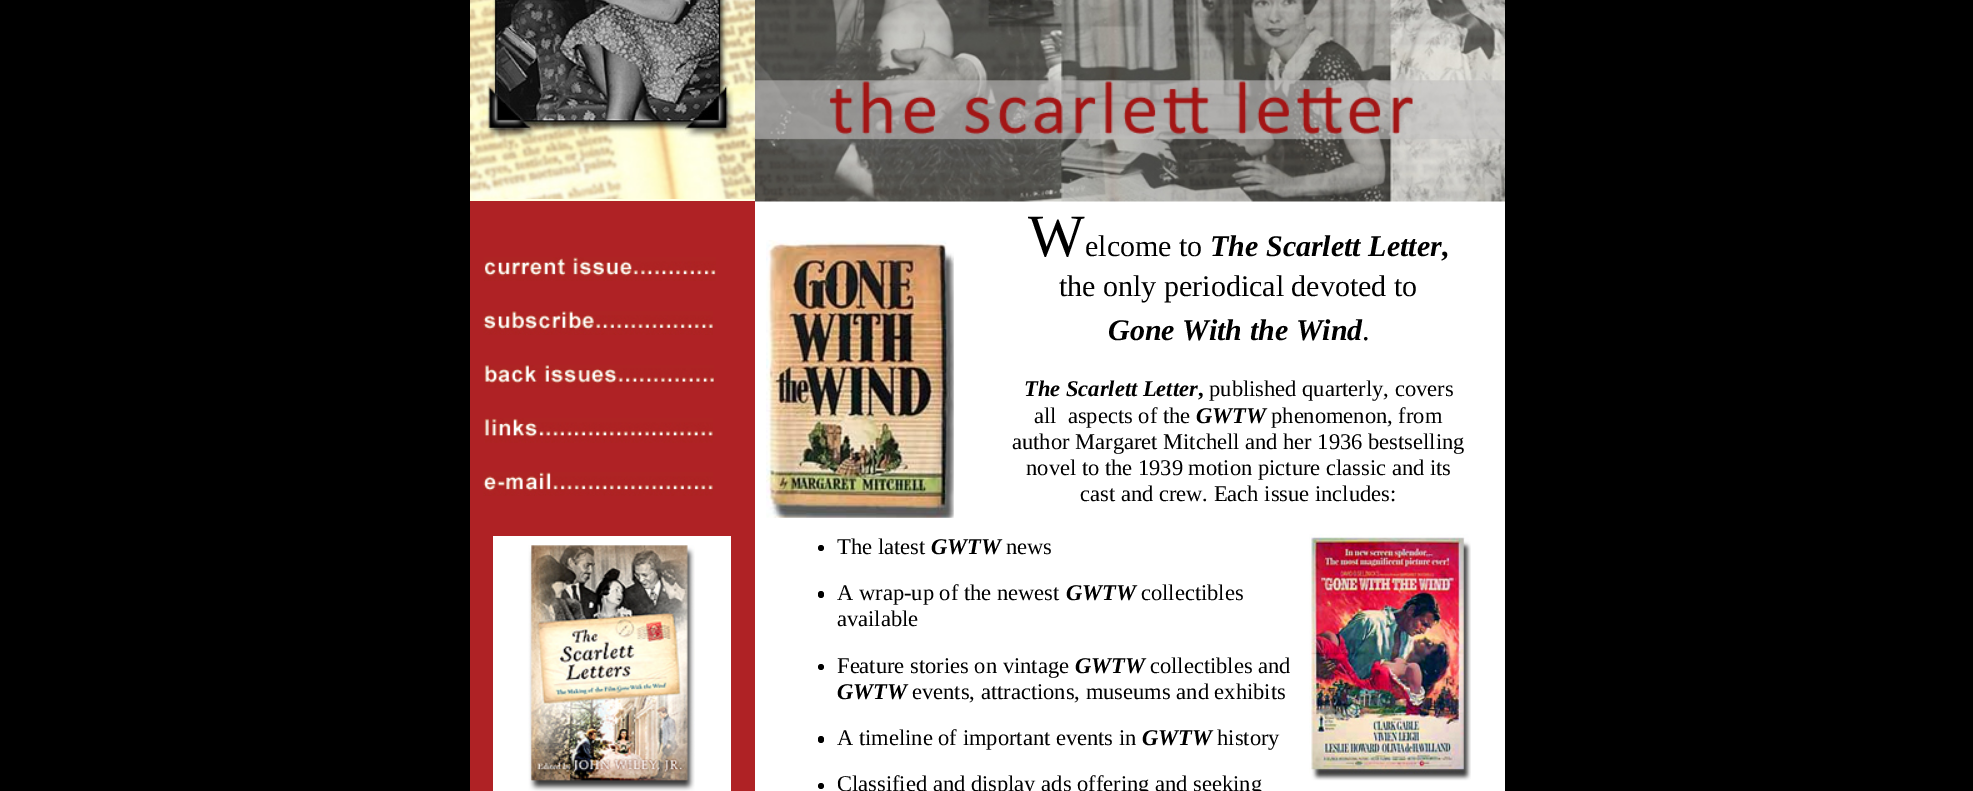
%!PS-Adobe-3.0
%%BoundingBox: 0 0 1973 791
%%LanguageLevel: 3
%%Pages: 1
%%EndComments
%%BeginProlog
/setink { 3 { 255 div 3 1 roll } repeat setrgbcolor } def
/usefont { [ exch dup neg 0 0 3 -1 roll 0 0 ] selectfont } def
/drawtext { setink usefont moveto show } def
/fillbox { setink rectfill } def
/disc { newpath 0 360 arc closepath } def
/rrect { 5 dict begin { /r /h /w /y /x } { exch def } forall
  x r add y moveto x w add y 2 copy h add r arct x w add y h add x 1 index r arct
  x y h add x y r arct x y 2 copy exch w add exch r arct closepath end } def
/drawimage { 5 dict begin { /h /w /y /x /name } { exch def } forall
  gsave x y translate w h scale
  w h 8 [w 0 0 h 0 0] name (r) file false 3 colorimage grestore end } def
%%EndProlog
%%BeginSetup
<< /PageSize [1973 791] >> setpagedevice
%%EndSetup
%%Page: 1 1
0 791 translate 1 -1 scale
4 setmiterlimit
0 0 1973 791 0 0 0 fillbox
470 199 285 2 255 255 228 fillbox
(assets/img1.rgb) 470 0 285 199 drawimage
755 201 750 590 255 255 255 fillbox
(assets/img2.rgb) 755 0 750 202 drawimage
470 201 285 590 175 34 37 fillbox
(assets/img3.rgb) 484 257 232 24 drawimage
(assets/img4.rgb) 483 311 230 24 drawimage
(assets/img5.rgb) 484 365 230 23 drawimage
(assets/img6.rgb) 484 418 229 25 drawimage
(assets/img7.rgb) 483 472 230 24 drawimage
493 536 238 255 255 255 255 fillbox
(assets/img8.rgb) 528 545 167 246 drawimage
(assets/img9.rgb) 766 240 188 278 drawimage
(W) 1028 256 /LiberationSerif-Regular 60 0 0 0 drawtext
(elcome to) 1085 256 /LiberationSerif-Regular 30 0 0 0 drawtext
(The Scarlett Letter) 1210 256 /LiberationSerif-BoldItalic 30 0 0 0 drawtext
(,) 1441 256 /LiberationSerif-Bold 30 0 0 0 drawtext
(the only periodical devoted to) 1059 296 /LiberationSerif-Regular 30 0 0 0 drawtext
(Gone With the Wind) 1108 340 /LiberationSerif-BoldItalic 30 0 0 0 drawtext
(.) 1362 340 /LiberationSerif-Regular 30 0 0 0 drawtext
(The Scarlett Letter) 1024 396 /LiberationSerif-BoldItalic 22.5 0 0 0 drawtext
(,) 1198 396 /LiberationSerif-Bold 22.5 0 0 0 drawtext
(published quarterly, covers) 1209 396 /LiberationSerif-Regular 22.5 0 0 0 drawtext
(all  aspects of the) 1034 423 /LiberationSerif-Regular 22.5 0 0 0 drawtext
(GWTW) 1196 423 /LiberationSerif-BoldItalic 22.5 0 0 0 drawtext
(phenomenon, from) 1271 423 /LiberationSerif-Regular 22.5 0 0 0 drawtext
(author Margaret Mitchell and her 1936 bestselling) 1012 449 /LiberationSerif-Regular 22.5 0 0 0 drawtext
(novel to the 1939 motion picture classic and its) 1026 475 /LiberationSerif-Regular 22.5 0 0 0 drawtext
(cast and crew. Each issue includes:) 1080 501 /LiberationSerif-Regular 22.5 0 0 0 drawtext
821 548 3 disc fill
(The latest) 837 554 /LiberationSerif-Regular 22.5 0 0 0 drawtext
(GWTW) 931 554 /LiberationSerif-BoldItalic 22.5 0 0 0 drawtext
(news) 1006 554 /LiberationSerif-Regular 22.5 0 0 0 drawtext
(assets/img10.rgb) 1309 534 162 247 drawimage
818 591 6 7 3 rrect fill
(A wrap-up of the newest) 837 600 /LiberationSerif-Regular 22.5 0 0 0 drawtext
(GWTW) 1066 600 /LiberationSerif-BoldItalic 22.5 0 0 0 drawtext
(collectibles) 1141 600 /LiberationSerif-Regular 22.5 0 0 0 drawtext
(available) 837 626 /LiberationSerif-Regular 22.5 0 0 0 drawtext
821 667 3 disc fill
(Feature stories on vintage) 837 673 /LiberationSerif-Regular 22.5 0 0 0 drawtext
(GWTW) 1075 673 /LiberationSerif-BoldItalic 22.5 0 0 0 drawtext
(collectibles and) 1150 673 /LiberationSerif-Regular 22.5 0 0 0 drawtext
(GWTW) 837 699 /LiberationSerif-BoldItalic 22.5 0 0 0 drawtext
(events, attractions, museums and exhibits) 912 699 /LiberationSerif-Regular 22.5 0 0 0 drawtext
818 736 6 7 3 rrect fill
(A timeline of important events in) 837 745 /LiberationSerif-Regular 22.5 0 0 0 drawtext
(GWTW) 1142 745 /LiberationSerif-BoldItalic 22.5 0 0 0 drawtext
(history) 1217 745 /LiberationSerif-Regular 22.5 0 0 0 drawtext
821 786 3 disc fill
(Classified and display ads offering and seeking) 837 791 /LiberationSerif-Regular 22.5 0 0 0 drawtext
showpage
%%EOF
